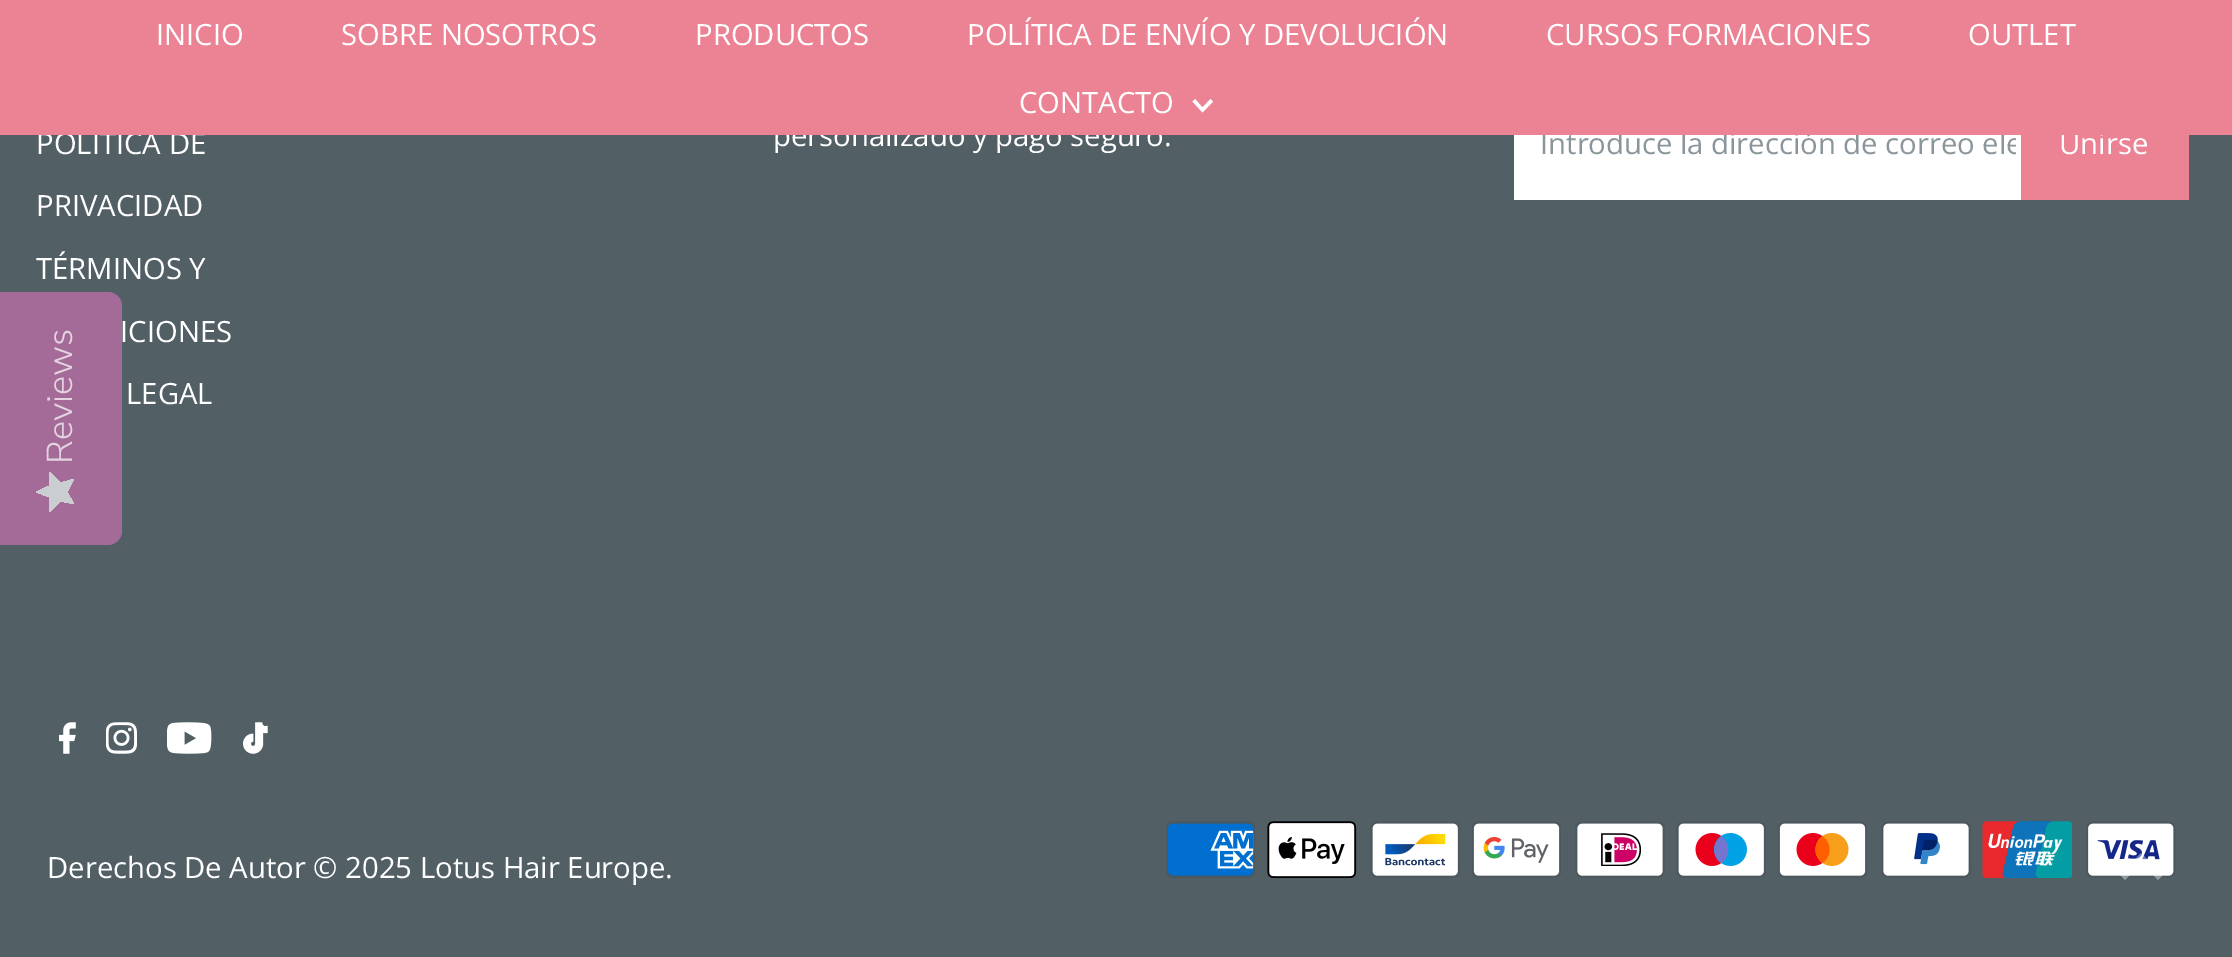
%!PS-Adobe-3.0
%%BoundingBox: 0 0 2232 957
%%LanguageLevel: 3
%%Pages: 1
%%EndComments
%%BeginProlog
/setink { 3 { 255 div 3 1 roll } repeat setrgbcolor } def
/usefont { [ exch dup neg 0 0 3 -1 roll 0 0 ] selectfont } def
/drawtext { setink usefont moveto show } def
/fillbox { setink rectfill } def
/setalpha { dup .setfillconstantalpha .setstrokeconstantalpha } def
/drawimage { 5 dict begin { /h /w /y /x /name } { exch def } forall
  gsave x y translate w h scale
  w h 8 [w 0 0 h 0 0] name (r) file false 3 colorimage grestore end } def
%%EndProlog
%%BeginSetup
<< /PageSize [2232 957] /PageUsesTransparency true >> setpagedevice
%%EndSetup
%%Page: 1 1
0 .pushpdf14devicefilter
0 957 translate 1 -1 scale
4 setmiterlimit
0 0 2232 957 82 95 101 fillbox
(POLÍTICA DE) 36 154 /OpenSans-Regular 29.25 255 255 255 drawtext
(personalizado y pago seguro.) 773 146 /OpenSans-Regular 29.25 255 255 255 drawtext
1514 135 507 65 255 255 255 fillbox
gsave
1519 124 497 40 rectclip
(Introduce la dirección de correo ele) 1540 154 /OpenSans-Regular 29.25 138 150 155 drawtext
grestore
2021 135 168 65 235 131 148 fillbox
(Unirse) 2059 154 /OpenSans-Regular 29.25 255 255 255 drawtext
0 0 2232 135 235 131 148 fillbox
(INICIO) 156 45 /OpenSans-Regular 29.25 255 255 255 drawtext
(SOBRE NOSOTROS) 341 45 /OpenSans-Regular 29.25 255 255 255 drawtext
(PRODUCTOS) 695 45 /OpenSans-Regular 29.25 255 255 255 drawtext
(POLÍTICA DE ENVÍO Y DEVOLUCIÓN) 967 45 /OpenSans-Regular 29.25 255 255 255 drawtext
(CURSOS FORMACIONES) 1546 45 /OpenSans-Regular 29.25 255 255 255 drawtext
(OUTLET) 1968 45 /OpenSans-Regular 29.25 255 255 255 drawtext
(CONTACTO) 1019 113 /OpenSans-Regular 29.25 255 255 255 drawtext
1210.5 99 moveto 1202.5 107.5 lineto 1195 99 lineto 1192.5 101.5 lineto 1202.5 112.5 lineto 1213 101.5 lineto closepath fill
(PRIVACIDAD) 36 216 /OpenSans-Regular 29.25 255 255 255 drawtext
(TÉRMINOS Y) 36 279 /OpenSans-Regular 29.25 255 255 255 drawtext
(ICIONES) 120 342 /OpenSans-Regular 29.25 255 255 255 drawtext
(LEGAL) 126 404 /OpenSans-Regular 29.25 255 255 255 drawtext
(assets/img1.rgb) 59 722 17 32 drawimage
(assets/img2.rgb) 106 722 31 32 drawimage
(assets/img3.rgb) 167 722 45 32 drawimage
(assets/img4.rgb) 243 722 25 32 drawimage
(Derechos De Autor © 2025 Lotus Hair Europe.) 47 878 /OpenSans-Regular 29.25 255 255 255 drawtext
(assets/img5.rgb) 1166 821 89 57 drawimage
(assets/img6.rgb) 1267 821 90 57 drawimage
(assets/img7.rgb) 1370 821 90 57 drawimage
(assets/img8.rgb) 1472 821 89 57 drawimage
(assets/img9.rgb) 1575 821 90 57 drawimage
(assets/img10.rgb) 1676 821 90 57 drawimage
(assets/img11.rgb) 1778 821 89 57 drawimage
(assets/img12.rgb) 1881 821 90 57 drawimage
(assets/img13.rgb) 1982 821 90 57 drawimage
(assets/img14.rgb) 2086 821 90 57 drawimage
0.4 setalpha
2141 853 moveto 2120 875 lineto 2125 880 lineto 2141 863 lineto 2158 880 lineto 2163 875 lineto closepath fill
0.7 setalpha
200 112 174 setink
0 545 moveto 0 292 lineto 108 292 lineto 115 292 122 298 122 306 curveto 122 531 lineto 122 539 115 545 108 545 curveto closepath fill
/NunitoSans-Light 36 usefont
1 setalpha
228 211 224 setink
gsave 72 464 translate -90 rotate 0 0 moveto (Reviews) show grestore
gsave 67 492 moveto 74 479 lineto 60 483 lineto 50 472 lineto 49 486 lineto 36 492 lineto 49 497 lineto 50 512 lineto 60 501 lineto 74 504 lineto closepath clip newpath
<< /ShadingType 2 /ColorSpace /DeviceRGB /Coords [36 512 36 472] /Extend [true true] /Function << /FunctionType 2 /Domain [0 1] /C0 [0.792 0.808 0.816] /C1 [0.792 0.808 0.816] /N 1 >> >> shfill grestore
.poppdf14devicefilter showpage
%%EOF
